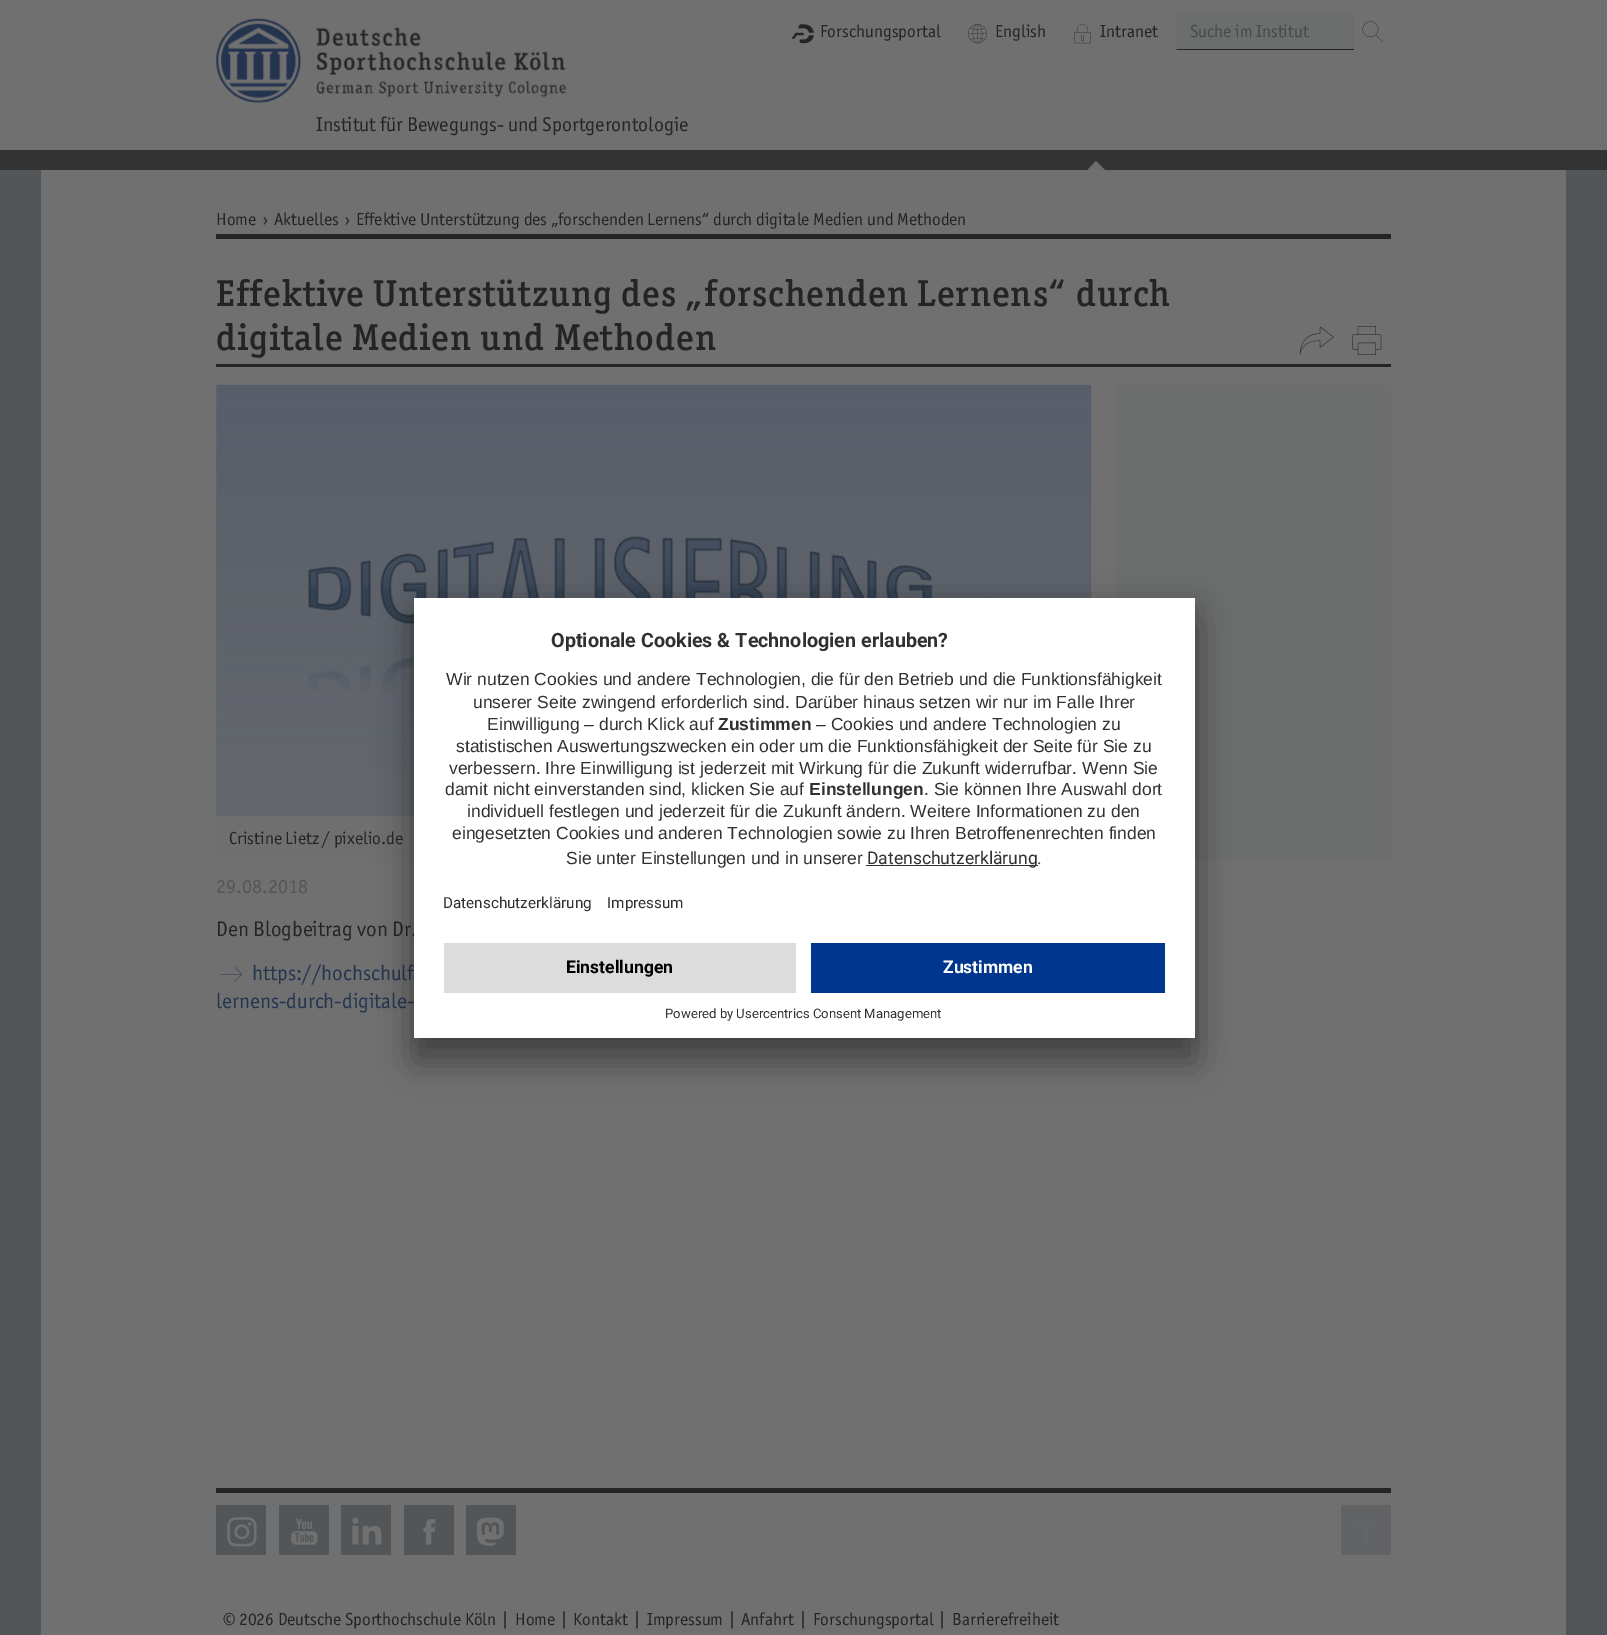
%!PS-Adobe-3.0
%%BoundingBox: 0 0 1607 1635
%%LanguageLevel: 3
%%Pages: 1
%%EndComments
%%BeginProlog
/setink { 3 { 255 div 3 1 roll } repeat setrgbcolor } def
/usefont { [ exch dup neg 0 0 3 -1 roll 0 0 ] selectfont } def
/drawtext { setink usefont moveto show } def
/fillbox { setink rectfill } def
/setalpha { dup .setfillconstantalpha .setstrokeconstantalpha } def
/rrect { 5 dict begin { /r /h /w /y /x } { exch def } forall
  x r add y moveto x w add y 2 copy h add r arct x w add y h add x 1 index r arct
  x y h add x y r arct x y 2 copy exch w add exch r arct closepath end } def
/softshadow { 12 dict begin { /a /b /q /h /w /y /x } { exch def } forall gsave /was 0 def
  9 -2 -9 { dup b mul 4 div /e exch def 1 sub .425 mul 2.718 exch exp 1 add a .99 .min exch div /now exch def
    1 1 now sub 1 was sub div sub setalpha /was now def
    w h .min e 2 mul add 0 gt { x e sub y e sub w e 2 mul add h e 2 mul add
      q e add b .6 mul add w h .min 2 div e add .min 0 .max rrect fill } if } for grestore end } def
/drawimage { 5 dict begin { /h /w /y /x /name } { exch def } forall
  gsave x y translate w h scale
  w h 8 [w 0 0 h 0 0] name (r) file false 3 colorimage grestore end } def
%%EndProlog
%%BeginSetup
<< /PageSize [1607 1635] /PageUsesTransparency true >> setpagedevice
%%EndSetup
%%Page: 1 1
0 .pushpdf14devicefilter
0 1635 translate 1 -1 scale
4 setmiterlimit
0 0 1607 1635 83 86 89 fillbox
0 0 1607 150 112 112 112 fillbox
(assets/img1.rgb) 791 24 23 20 drawimage
(Forschungsportal) 820 37 /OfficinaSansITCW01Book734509-Regular 17.5 36 36 36 drawtext
(assets/img2.rgb) 968 24 19 20 drawimage
(English) 995 37 /OfficinaSansITCW01Book734509-Regular 17.5 36 36 36 drawtext
(assets/img3.rgb) 1074 24 17 20 drawimage
(Intranet) 1100 37 /OfficinaSansITCW01Book734509-Regular 17.5 36 36 36 drawtext
1176 13 178 37 108 109 109 fillbox
36 36 36 setink
1390 50 moveto 1176 50 lineto 1178 49 lineto 1389 49 lineto closepath fill
(Suche im Institut) 1190 37 /OfficinaSansITCW01Book734509-Regular 17.5 68 74 78 drawtext
1354 49 36 1 112 112 112 fillbox
(assets/img4.rgb) 1362 21 21 21 drawimage
(assets/img5.rgb) 216 18 351 85 drawimage
(Institut für Bewegungs- und Sportgerontologie) 316 131 /OfficinaSansITCW01Book734509-Regular 20 36 36 36 drawtext
0 150 1607 20 51 51 51 fillbox
108 109 109 setink
1105 170 moveto 1087.5 170 lineto 1096 161 lineto closepath fill
41 170 1525 1465 112 112 112 fillbox
216 234 1175 5 36 36 36 fillbox
(Home) 216 225 /OfficinaSansITCW01Book734509-Regular 17.5 36 36 36 drawtext
(›) 263 225 /OfficinaSansITCW01Book734509-Regular 17.5 36 36 36 drawtext
(Aktuelles) 274 225 /OfficinaSansITCW01Book734509-Regular 17.5 36 36 36 drawtext
(›) 345 225 /OfficinaSansITCW01Book734509-Regular 17.5 36 36 36 drawtext
(Effektive Unterstützung des „forschenden Lernens“ durch digitale Medien und Methoden) 356 225 /OfficinaSansITCW01Book734509-Regular 17.5 36 36 36 drawtext
216 364 1175 3 36 36 36 fillbox
/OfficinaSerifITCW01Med-Medium 37.5 usefont
216 306 moveto 0.95 0 (Effektive Unterstützung des „forschenden Lernens“ durch) ashow
216 350 moveto 0.95 0 (digitale Medien und Methoden) ashow
(assets/img6.rgb) 1299 326 35 29 drawimage
(assets/img7.rgb) 1352 326 30 29 drawimage
216 385 1175 475 108 109 109 fillbox
1091 385 25 213 112 112 112 fillbox
(assets/img8.rgb) 216 384 876 476 drawimage
0.9 setalpha
216 816 198 44 112 112 112 fillbox
1 setalpha
(Cristine Lietz / pixelio.de) 229 844 /OfficinaSansITCW01Book734509-Regular 17.5 36 36 36 drawtext
(29.08.2018) 216 893 /OfficinaSansITCW01Book734509-Regular 20 83 86 89 drawtext
(Den Blogbeitrag von Dr.) 216 936 /OfficinaSansITCW01Book734509-Regular 21.25 36 36 36 drawtext
(assets/img9.rgb) 220 966 22 16 drawimage
(https://hochschulf) 252 980 /OfficinaSansITCW01Book734509-Regular 21.25 36 52 80 drawtext
(lernens-durch-digitale-) 216 1008 /OfficinaSansITCW01Book734509-Regular 21.25 36 52 80 drawtext
0 0 0 setink
414 623 781 440 0 17.5 0.3 softshadow
414 604 781 440 0 16 0.22 softshadow
414 598 781 440 255 255 255 fillbox
(Optionale Cookies & Technologien erlauben?) 551 647 /Roboto-Bold 19.7 48 48 48 drawtext
(Wir nutzen Cookies und andere Technologien, die für den Betrieb und die Funktionsfähigkeit) 446 685 /LiberationSans-Regular 17.5 48 48 48 drawtext
(unserer Seite zwingend erforderlich sind. Darüber hinaus setzen wir nur im Falle Ihrer) 473 708 /LiberationSans-Regular 17.5 48 48 48 drawtext
(Einwilligung – durch Klick auf) 487 730 /LiberationSans-Regular 17.5 48 48 48 drawtext
(Zustimmen) 718 730 /LiberationSans-Bold 17.5 48 48 48 drawtext
(– Cookies und andere Technologien zu) 816 730 /LiberationSans-Regular 17.5 48 48 48 drawtext
(statistischen Auswertungszwecken ein oder um die Funktionsfähigkeit der Seite für Sie zu) 456 752 /LiberationSans-Regular 17.5 48 48 48 drawtext
(verbessern. Ihre Einwilligung ist jederzeit mit Wirkung für die Zukunft widerrufbar. Wenn Sie) 449 774 /LiberationSans-Regular 17.5 48 48 48 drawtext
(damit nicht einverstanden sind, klicken Sie auf) 445 795 /LiberationSans-Regular 17.5 48 48 48 drawtext
(Einstellungen) 809 795 /LiberationSans-Bold 17.5 48 48 48 drawtext
(. Sie können Ihre Auswahl dort) 924 795 /LiberationSans-Regular 17.5 48 48 48 drawtext
(individuell festlegen und jederzeit für die Zukunft ändern. Weitere Informationen zu den) 467 817 /LiberationSans-Regular 17.5 48 48 48 drawtext
(eingesetzten Cookies und anderen Technologien sowie zu Ihren Betroffenenrechten finden) 452 839 /LiberationSans-Regular 17.5 48 48 48 drawtext
(Sie unter Einstellungen und in unserer) 566 864 /LiberationSans-Regular 17.5 48 48 48 drawtext
866 865 172 1 48 48 48 fillbox
(Datenschutzerklärung.) 867 864 /Roboto-Regular 17.5 48 48 48 drawtext
(Datenschutzerklärung) 443 908 /Roboto-Regular 15.25 48 48 48 drawtext
(Impressum) 607 908 /Roboto-Regular 15.25 48 48 48 drawtext
444 943 352 50 220 220 220 fillbox
(Einstellungen) 566 973 /Roboto-Bold 17.5 0 0 0 drawtext
811 943 354 50 0 54 142 fillbox
(Zustimmen) 943 973 /Roboto-Bold 17.5 255 255 255 drawtext
(Powered by Usercentrics Consent Management) 665 1018 /Roboto-Regular 13.1 48 48 48 drawtext
216 1488 1175 5 36 36 36 fillbox
216 1505 50 50 83 86 89 fillbox
(assets/img10.rgb) 227 1517 30 30 drawimage
279 1505 50 50 83 86 89 fillbox
(assets/img11.rgb) 291 1518 27 27 drawimage
341 1505 50 50 83 86 89 fillbox
(assets/img12.rgb) 352 1517 30 28 drawimage
404 1505 50 50 83 86 89 fillbox
(assets/img13.rgb) 423 1519 13 26 drawimage
466 1505 50 50 83 86 89 fillbox
(assets/img14.rgb) 476 1517 28 29 drawimage
1341 1505 50 50 98 99 101 fillbox
(assets/img15.rgb) 1358 1519 18 26 drawimage
(© 2026 Deutsche Sporthochschule Köln) 223 1625 /OfficinaSansITCW01Book734509-Regular 17.5 36 36 36 drawtext
(|) 502 1625 /OfficinaSansITCW01Book734509-Regular 20 36 36 36 drawtext
(Home) 515 1625 /OfficinaSansITCW01Book734509-Regular 17.5 36 36 36 drawtext
(|) 561 1625 /OfficinaSansITCW01Book734509-Regular 20 36 36 36 drawtext
(Kontakt) 573 1625 /OfficinaSansITCW01Book734509-Regular 17.5 36 36 36 drawtext
(|) 634 1625 /OfficinaSansITCW01Book734509-Regular 20 36 36 36 drawtext
(Impressum) 647 1625 /OfficinaSansITCW01Book734509-Regular 17.5 36 36 36 drawtext
(|) 729 1625 /OfficinaSansITCW01Book734509-Regular 20 36 36 36 drawtext
(Anfahrt) 741 1625 /OfficinaSansITCW01Book734509-Regular 17.5 36 36 36 drawtext
(|) 800 1625 /OfficinaSansITCW01Book734509-Regular 20 36 36 36 drawtext
(Forschungsportal) 813 1625 /OfficinaSansITCW01Book734509-Regular 17.5 36 36 36 drawtext
(|) 939 1625 /OfficinaSansITCW01Book734509-Regular 20 36 36 36 drawtext
(Barrierefreiheit) 952 1625 /OfficinaSansITCW01Book734509-Regular 17.5 36 36 36 drawtext
.poppdf14devicefilter showpage
%%EOF
